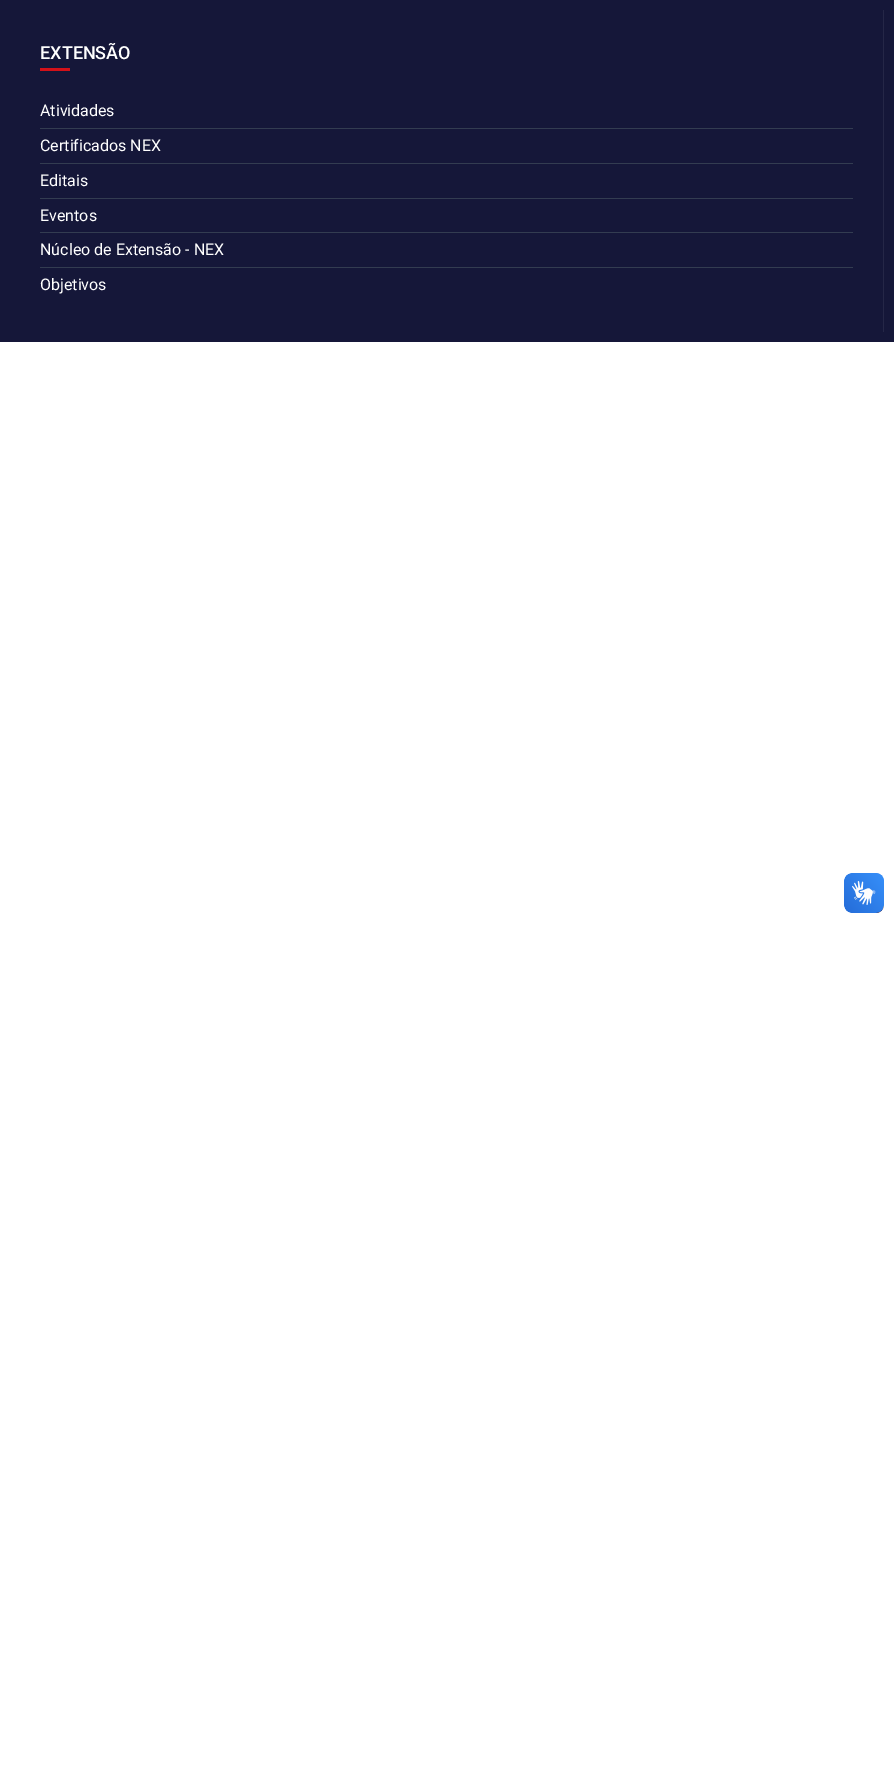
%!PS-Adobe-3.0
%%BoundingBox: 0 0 894 1785
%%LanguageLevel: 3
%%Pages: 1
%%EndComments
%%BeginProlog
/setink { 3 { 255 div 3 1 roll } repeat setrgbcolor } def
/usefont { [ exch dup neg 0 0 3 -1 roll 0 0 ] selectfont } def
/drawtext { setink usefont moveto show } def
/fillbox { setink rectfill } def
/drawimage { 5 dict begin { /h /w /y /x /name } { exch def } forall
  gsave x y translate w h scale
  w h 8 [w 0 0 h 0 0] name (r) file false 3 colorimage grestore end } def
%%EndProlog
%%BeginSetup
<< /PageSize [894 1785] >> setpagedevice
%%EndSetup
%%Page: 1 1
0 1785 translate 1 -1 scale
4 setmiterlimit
0 0 894 1785 255 255 255 fillbox
0 0 894 342 21 23 57 fillbox
883 10 1 322 37 39 71 fillbox
(EXTENSÃO) 40 59 /Roboto-Medium 18 255 255 255 drawtext
40 68 30 3 211 17 25 fillbox
(Atividades) 40 116 /Roboto-Regular 16 255 255 255 drawtext
40 128 813 1 51 60 81 fillbox
(Certificados NEX) 40 151 /Roboto-Regular 16 255 255 255 drawtext
40 163 813 1 51 60 81 fillbox
(Editais) 40 186 /Roboto-Regular 16 255 255 255 drawtext
40 198 813 1 51 60 81 fillbox
(Eventos) 40 221 /Roboto-Regular 16 255 255 255 drawtext
40 232 813 1 51 60 81 fillbox
(Núcleo de Extensão - NEX) 40 255 /Roboto-Regular 16 255 255 255 drawtext
40 267 813 1 51 60 81 fillbox
(Objetivos) 40 290 /Roboto-Regular 16 255 255 255 drawtext
(assets/img1.rgb) 844 873 40 40 drawimage
(assets/img2.rgb) 844 873 40 40 drawimage
showpage
%%EOF
